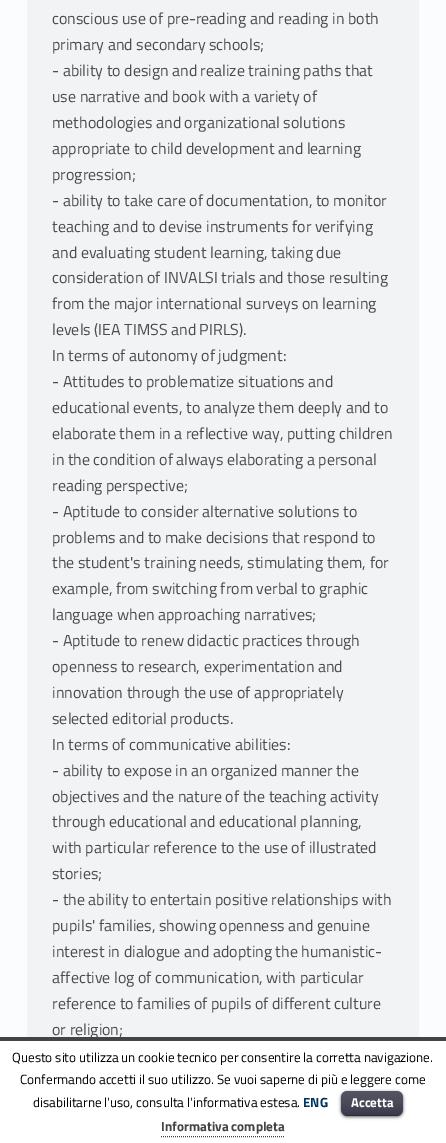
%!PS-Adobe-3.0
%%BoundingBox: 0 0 446 1143
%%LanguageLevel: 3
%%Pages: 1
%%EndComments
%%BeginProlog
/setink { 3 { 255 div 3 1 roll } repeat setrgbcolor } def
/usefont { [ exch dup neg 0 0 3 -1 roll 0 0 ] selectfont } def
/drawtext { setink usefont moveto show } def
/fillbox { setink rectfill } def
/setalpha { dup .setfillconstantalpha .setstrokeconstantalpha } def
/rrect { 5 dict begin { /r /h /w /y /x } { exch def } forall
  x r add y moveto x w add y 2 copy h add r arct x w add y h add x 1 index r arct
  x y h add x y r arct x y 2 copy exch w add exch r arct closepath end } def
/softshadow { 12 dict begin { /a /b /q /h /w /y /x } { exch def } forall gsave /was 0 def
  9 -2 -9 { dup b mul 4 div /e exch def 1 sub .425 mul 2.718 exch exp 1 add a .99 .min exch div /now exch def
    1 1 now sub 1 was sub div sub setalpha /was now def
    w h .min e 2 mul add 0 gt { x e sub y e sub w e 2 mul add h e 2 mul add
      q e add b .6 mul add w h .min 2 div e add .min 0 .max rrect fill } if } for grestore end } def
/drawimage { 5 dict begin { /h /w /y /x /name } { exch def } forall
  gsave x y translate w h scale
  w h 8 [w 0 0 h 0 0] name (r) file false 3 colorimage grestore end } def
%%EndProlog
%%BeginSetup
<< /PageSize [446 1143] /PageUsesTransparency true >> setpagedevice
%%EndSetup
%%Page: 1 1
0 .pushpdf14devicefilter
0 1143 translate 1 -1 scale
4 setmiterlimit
0 0 446 1143 250 252 254 fillbox
27 0 392 1037 241 243 245 fillbox
(conscious use of pre-reading and reading in both) 52 24 /TitilliumWeb-Regular 16 74 76 77 drawtext
(primary and secondary schools;) 52 50 /TitilliumWeb-Regular 16 74 76 77 drawtext
(- ability to design and realize training paths that) 52 76 /TitilliumWeb-Regular 16 74 76 77 drawtext
(use narrative and book with a variety of) 52 102 /TitilliumWeb-Regular 16 74 76 77 drawtext
(methodologies and organizational solutions) 52 128 /TitilliumWeb-Regular 16 74 76 77 drawtext
(appropriate to child development and learning) 52 154 /TitilliumWeb-Regular 16 74 76 77 drawtext
(progression;) 52 180 /TitilliumWeb-Regular 16 74 76 77 drawtext
(- ability to take care of documentation, to monitor) 52 206 /TitilliumWeb-Regular 16 74 76 77 drawtext
(teaching and to devise instruments for verifying) 52 232 /TitilliumWeb-Regular 16 74 76 77 drawtext
(and evaluating student learning, taking due) 52 258 /TitilliumWeb-Regular 16 74 76 77 drawtext
(consideration of INVALSI trials and those resulting) 52 283 /TitilliumWeb-Regular 16 74 76 77 drawtext
(from the major international surveys on learning) 52 309 /TitilliumWeb-Regular 16 74 76 77 drawtext
(levels \(IEA TIMSS and PIRLS\).) 52 335 /TitilliumWeb-Regular 16 74 76 77 drawtext
(In terms of autonomy of judgment:) 52 361 /TitilliumWeb-Regular 16 74 76 77 drawtext
(- Attitudes to problematize situations and) 52 387 /TitilliumWeb-Regular 16 74 76 77 drawtext
(educational events, to analyze them deeply and to) 52 413 /TitilliumWeb-Regular 16 74 76 77 drawtext
(elaborate them in a reflective way, putting children) 52 439 /TitilliumWeb-Regular 16 74 76 77 drawtext
(in the condition of always elaborating a personal) 52 465 /TitilliumWeb-Regular 16 74 76 77 drawtext
(reading perspective;) 52 491 /TitilliumWeb-Regular 16 74 76 77 drawtext
(- Aptitude to consider alternative solutions to) 52 517 /TitilliumWeb-Regular 16 74 76 77 drawtext
(problems and to make decisions that respond to) 52 543 /TitilliumWeb-Regular 16 74 76 77 drawtext
(the student's training needs, stimulating them, for) 52 568 /TitilliumWeb-Regular 16 74 76 77 drawtext
(example, from switching from verbal to graphic) 52 594 /TitilliumWeb-Regular 16 74 76 77 drawtext
(language when approaching narratives;) 52 620 /TitilliumWeb-Regular 16 74 76 77 drawtext
(- Aptitude to renew didactic practices through) 52 646 /TitilliumWeb-Regular 16 74 76 77 drawtext
(openness to research, experimentation and) 52 672 /TitilliumWeb-Regular 16 74 76 77 drawtext
(innovation through the use of appropriately) 52 698 /TitilliumWeb-Regular 16 74 76 77 drawtext
(selected editorial products.) 52 724 /TitilliumWeb-Regular 16 74 76 77 drawtext
(In terms of communicative abilities:) 52 750 /TitilliumWeb-Regular 16 74 76 77 drawtext
(- ability to expose in an organized manner the) 52 776 /TitilliumWeb-Regular 16 74 76 77 drawtext
(objectives and the nature of the teaching activity) 52 802 /TitilliumWeb-Regular 16 74 76 77 drawtext
(through educational and educational planning,) 52 827 /TitilliumWeb-Regular 16 74 76 77 drawtext
(with particular reference to the use of illustrated) 52 853 /TitilliumWeb-Regular 16 74 76 77 drawtext
(stories;) 52 879 /TitilliumWeb-Regular 16 74 76 77 drawtext
(- the ability to entertain positive relationships with) 52 905 /TitilliumWeb-Regular 16 74 76 77 drawtext
(pupils' families, showing openness and genuine) 52 931 /TitilliumWeb-Regular 16 74 76 77 drawtext
(interest in dialogue and adopting the humanistic-) 52 957 /TitilliumWeb-Regular 16 74 76 77 drawtext
(affective log of communication, with particular) 52 983 /TitilliumWeb-Regular 16 74 76 77 drawtext
(reference to families of pupils of different culture) 52 1009 /TitilliumWeb-Regular 16 74 76 77 drawtext
(or religion;) 52 1035 /TitilliumWeb-Regular 16 74 76 77 drawtext
0 1041 446 102 255 255 255 fillbox
0 1037 446 4 68 68 68 fillbox
(Questo sito utilizza un cookie tecnico per consentire la corretta navigazione.) 12 1062 /TitilliumWeb-Regular 13.3 0 0 0 drawtext
(Confermando accetti il suo utilizzo. Se vuoi saperne di più e leggere come) 20 1084 /TitilliumWeb-Regular 13.3 0 0 0 drawtext
(disabilitarne l'uso, consulta l'informativa estesa.) 33 1107 /TitilliumWeb-Regular 13.3 0 0 0 drawtext
(ENG) 303 1107 /TitilliumWeb-Bold 13.3 1 52 93 drawtext
0 0 0 setink
341 1092 62 25 6 1.5 0.6 softshadow
26 27 45 setink
341 1091 62 25 6 rrect fill
(assets/img1.rgb) 341 1091 62 25 drawimage
0.25 setalpha
344 1115 56 1 0 0 0 fillbox
1 setalpha
(Accetta) 351 1107 /TitilliumWeb-Bold 13 255 255 255 drawtext
(Informativa completa) 161 1131 /TitilliumWeb-Bold 13.3 68 68 68 drawtext
[1 1] 0 setdash
161 1136.5 moveto 285 1136.5 lineto stroke
.poppdf14devicefilter showpage
%%EOF
